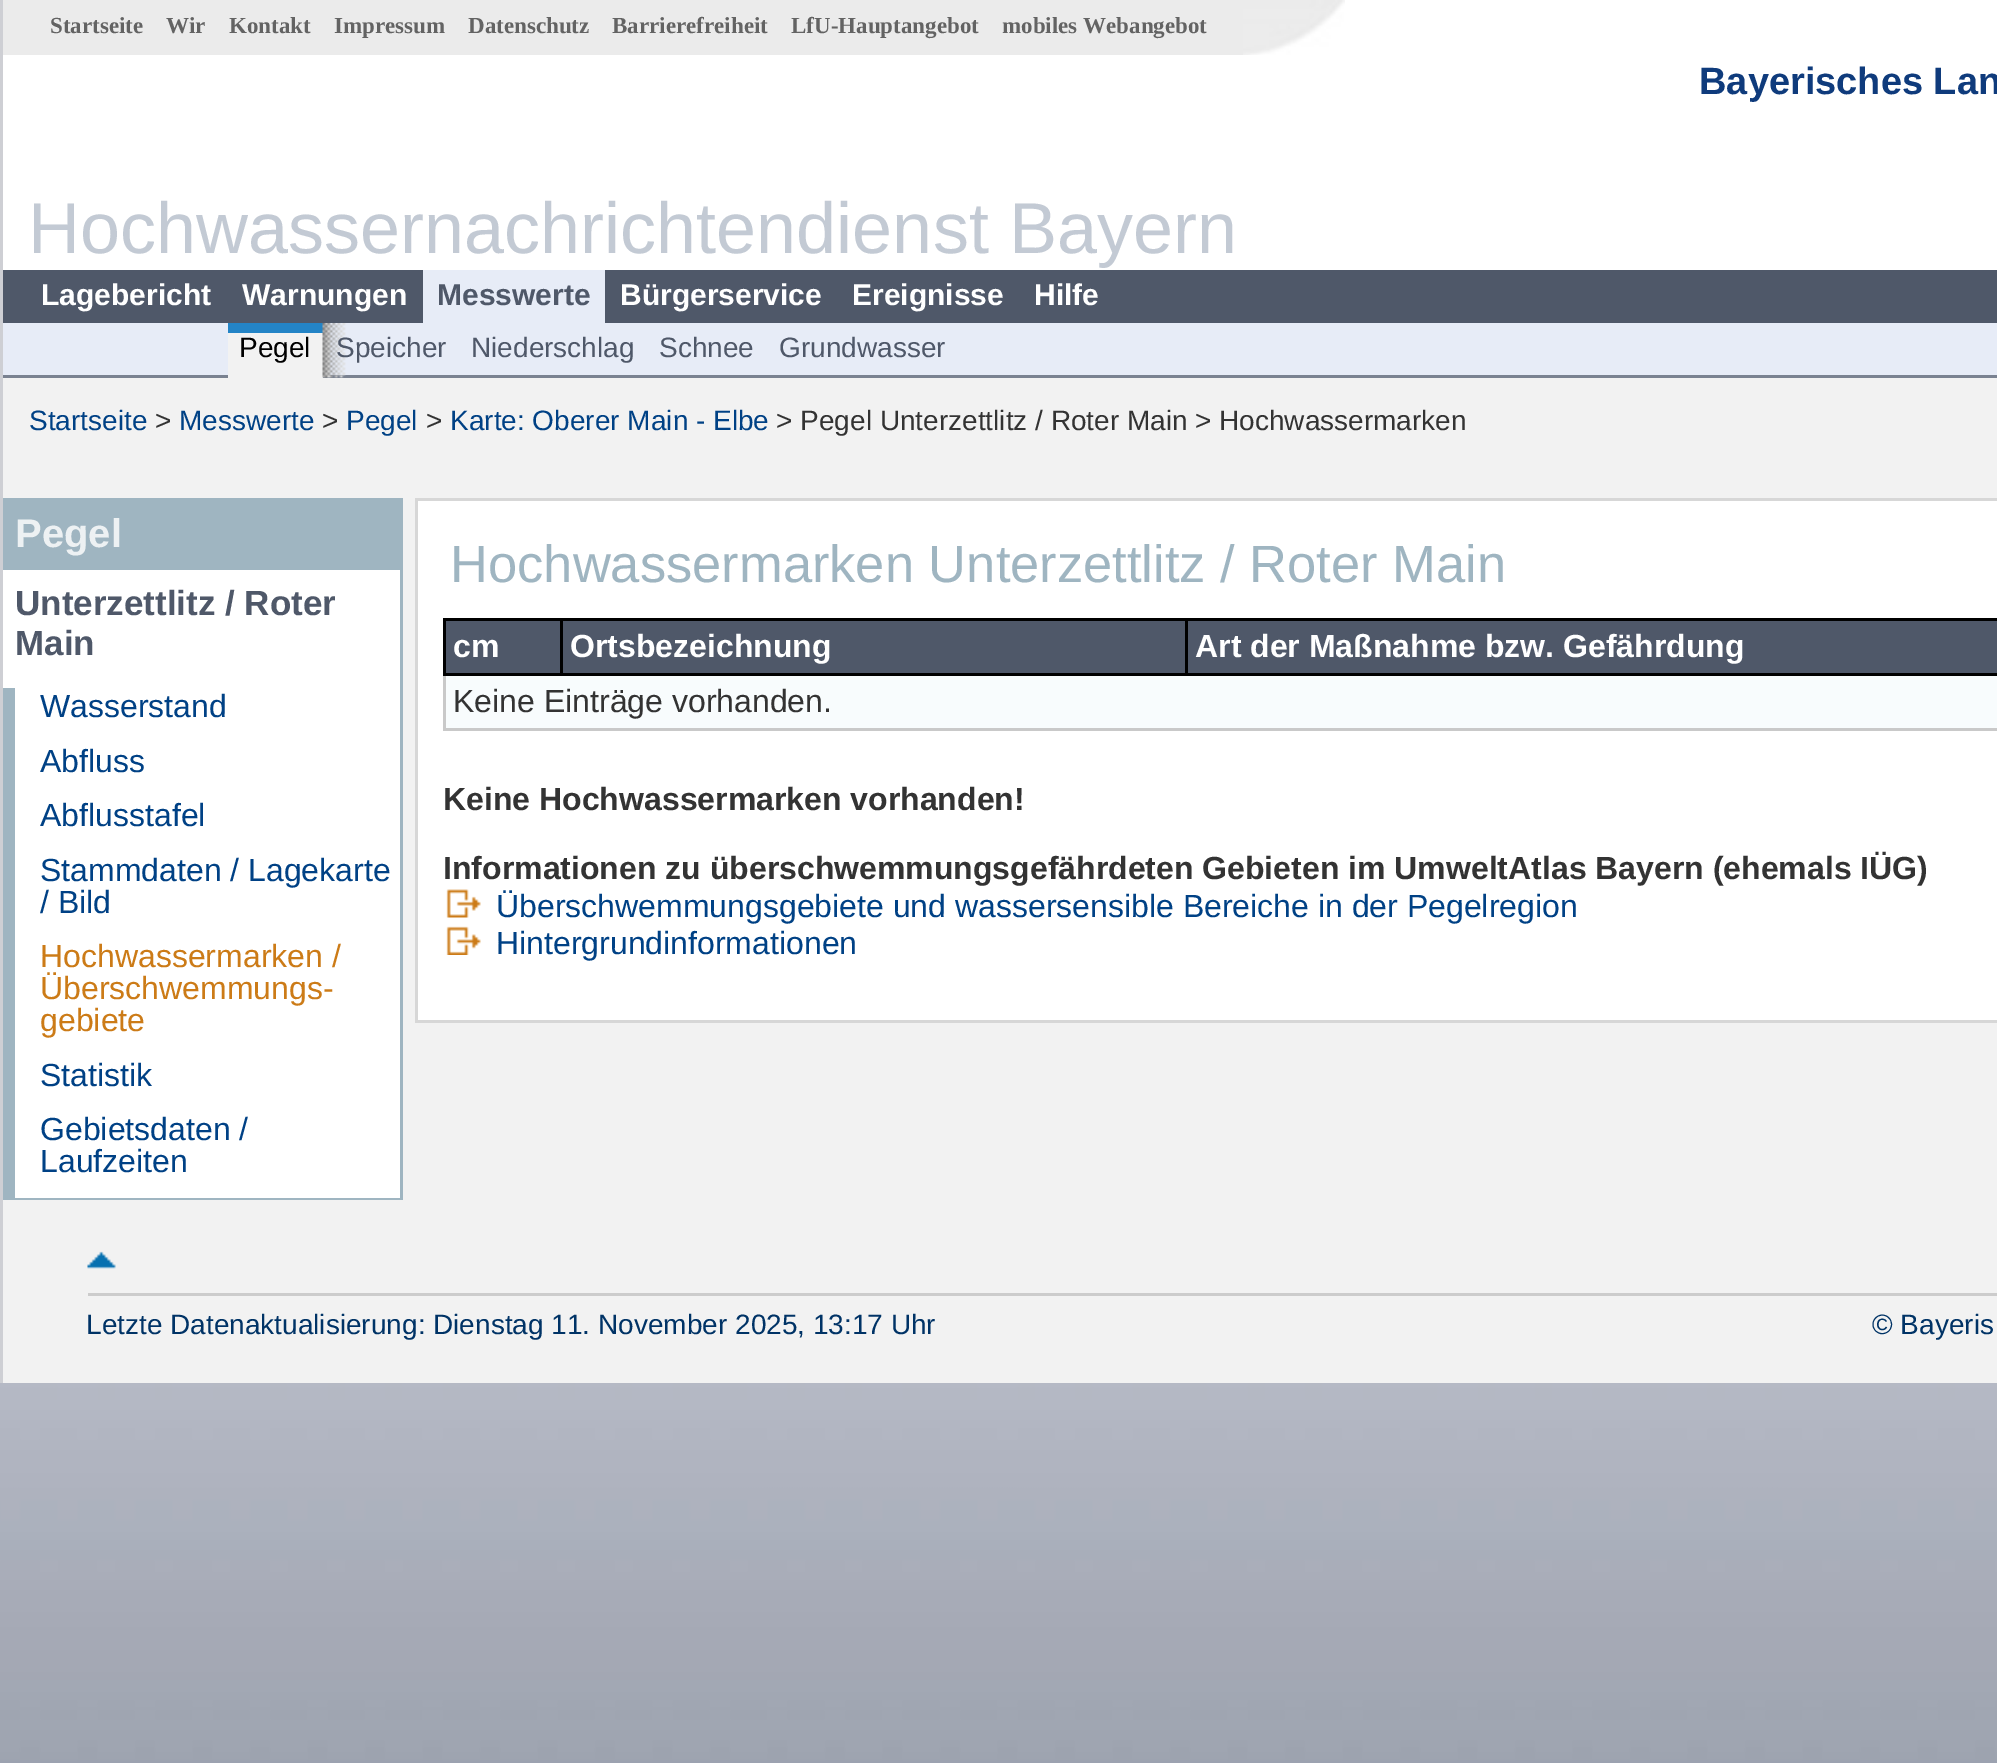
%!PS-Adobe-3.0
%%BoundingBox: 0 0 1997 1763
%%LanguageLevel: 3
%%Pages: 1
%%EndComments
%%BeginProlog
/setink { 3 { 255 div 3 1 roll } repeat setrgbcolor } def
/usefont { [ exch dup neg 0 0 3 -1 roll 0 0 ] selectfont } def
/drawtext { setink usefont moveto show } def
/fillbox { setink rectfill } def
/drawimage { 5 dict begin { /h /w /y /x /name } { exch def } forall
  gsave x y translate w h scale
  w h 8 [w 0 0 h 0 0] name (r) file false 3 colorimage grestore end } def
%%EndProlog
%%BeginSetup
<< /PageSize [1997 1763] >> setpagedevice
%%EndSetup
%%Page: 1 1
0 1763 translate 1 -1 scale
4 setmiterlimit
0 0 1997 1763 255 255 255 fillbox
(assets/img1.rgb) 0 1383 1997 380 drawimage
0 0 3 1383 206 207 212 fillbox
3 0 1240 55 235 235 235 fillbox
(assets/img2.rgb) 1243 0 102 55 drawimage
(Startseite) 50 33 /LiberationSerif-Bold 23 99 99 99 drawtext
(Wir) 166 33 /LiberationSerif-Bold 23 99 99 99 drawtext
(Kontakt) 229 33 /LiberationSerif-Bold 23 99 99 99 drawtext
(Impressum) 334 33 /LiberationSerif-Bold 23 99 99 99 drawtext
(Datenschutz) 468 33 /LiberationSerif-Bold 23 99 99 99 drawtext
(Barrierefreiheit) 612 33 /LiberationSerif-Bold 23 99 99 99 drawtext
(LfU-Hauptangebot) 791 33 /LiberationSerif-Bold 23 99 99 99 drawtext
(mobiles Webangebot) 1002 33 /LiberationSerif-Bold 23 99 99 99 drawtext
(Bayerisches Lan) 1699 94 /LiberationSans-Bold 38 15 59 124 drawtext
(Hochwassernachrichtendienst Bayern) 28 253 /LiberationSans-Regular 72 195 202 212 drawtext
3 270 1994 53 79 88 105 fillbox
(Lagebericht) 41 305 /LiberationSans-Bold 30 255 255 255 drawtext
(Warnungen) 242 305 /LiberationSans-Bold 30 255 255 255 drawtext
423 270 182 53 231 236 247 fillbox
(Messwerte) 437 305 /LiberationSans-Bold 30 79 88 105 drawtext
(Bürgerservice) 620 305 /LiberationSans-Bold 30 255 255 255 drawtext
(Ereignisse) 852 305 /LiberationSans-Bold 30 255 255 255 drawtext
(Hilfe) 1034 305 /LiberationSans-Bold 30 255 255 255 drawtext
3 323 1994 52 231 236 247 fillbox
3 375 1994 3 122 130 145 fillbox
228 333 95 45 242 242 242 fillbox
228 323 95 10 36 132 198 fillbox
(Pegel) 239 357 /LiberationSans-Regular 28 0 0 0 drawtext
(assets/img3.rgb) 322 323 24 55 drawimage
(Speicher) 336 357 /LiberationSans-Regular 28 79 88 105 drawtext
(Niederschlag) 471 357 /LiberationSans-Regular 28 79 88 105 drawtext
(Schnee) 659 357 /LiberationSans-Regular 28 79 88 105 drawtext
(Grundwasser) 779 357 /LiberationSans-Regular 28 79 88 105 drawtext
3 378 1994 1005 242 242 242 fillbox
(Startseite) 29 430 /LiberationSans-Regular 28 0 65 133 drawtext
(>) 155 430 /LiberationSans-Regular 28 51 51 51 drawtext
(Messwerte) 179 430 /LiberationSans-Regular 28 0 65 133 drawtext
(>) 322 430 /LiberationSans-Regular 28 51 51 51 drawtext
(Pegel) 346 430 /LiberationSans-Regular 28 0 65 133 drawtext
(>) 426 430 /LiberationSans-Regular 28 51 51 51 drawtext
(Karte: Oberer Main - Elbe) 450 430 /LiberationSans-Regular 28 0 65 133 drawtext
(> Pegel Unterzettlitz / Roter Main >) 776 430 /LiberationSans-Regular 28 51 51 51 drawtext
(Hochwassermarken) 1219 430 /LiberationSans-Regular 28 51 51 51 drawtext
3 570 397 628 255 255 255 fillbox
3 498 400 2 159 181 193 fillbox
400 498 3 702 159 181 193 fillbox
3 1198 400 2 159 181 193 fillbox
3 500 397 70 159 181 193 fillbox
(Pegel) 15 547 /LiberationSans-Bold 40 237 241 243 drawtext
(Unterzettlitz / Roter) 15 615 /LiberationSans-Bold 35 79 88 105 drawtext
(Main) 15 655 /LiberationSans-Bold 35 79 88 105 drawtext
3 688 12 510 159 181 193 fillbox
(Wasserstand) 40 717 /LiberationSans-Regular 32 0 65 133 drawtext
(Abfluss) 40 772 /LiberationSans-Regular 32 0 65 133 drawtext
(Abflusstafel) 40 826 /LiberationSans-Regular 32 0 65 133 drawtext
(Stammdaten / Lagekarte) 40 881 /LiberationSans-Regular 32 0 65 133 drawtext
(/ Bild) 40 913 /LiberationSans-Regular 32 0 65 133 drawtext
(Hochwassermarken /) 40 967 /LiberationSans-Regular 32 204 123 23 drawtext
(Überschwemmungs-) 40 999 /LiberationSans-Regular 32 204 123 23 drawtext
(gebiete) 40 1031 /LiberationSans-Regular 32 204 123 23 drawtext
(Statistik) 40 1086 /LiberationSans-Regular 32 0 65 133 drawtext
(Gebietsdaten /) 40 1140 /LiberationSans-Regular 32 0 65 133 drawtext
(Laufzeiten) 40 1172 /LiberationSans-Regular 32 0 65 133 drawtext
418 501 1579 519 255 255 255 fillbox
415 498 1582 3 215 215 215 fillbox
415 1020 1582 3 215 215 215 fillbox
415 498 3 525 215 215 215 fillbox
(Hochwassermarken Unterzettlitz / Roter Main) 450 582 /LiberationSans-Regular 52.5 159 181 193 drawtext
446 621 114 52 79 88 105 fillbox
1185 618 812 3 0 0 0 fillbox
1185 673 812 3 0 0 0 fillbox
1185 618 3 57 0 0 0 fillbox
560 618 628 3 0 0 0 fillbox
560 673 628 3 0 0 0 fillbox
560 618 3 57 0 0 0 fillbox
443 618 120 3 0 0 0 fillbox
443 728 1554 3 201 201 201 fillbox
443 673 3 57 201 201 201 fillbox
443 673 120 3 0 0 0 fillbox
443 618 3 57 0 0 0 fillbox
(cm) 453 657 /LiberationSans-Bold 32 255 255 255 drawtext
563 621 622 52 79 88 105 fillbox
(Ortsbezeichnung) 570 657 /LiberationSans-Bold 32 255 255 255 drawtext
1188 621 809 52 79 88 105 fillbox
(Art der Maßnahme bzw. Gefährdung) 1195 657 /LiberationSans-Bold 32 255 255 255 drawtext
446 676 1551 52 248 252 253 fillbox
(Keine Einträge vorhanden.) 453 712 /LiberationSans-Regular 32 51 51 51 drawtext
(Keine Hochwassermarken vorhanden!) 443 810 /LiberationSans-Bold 32 51 51 51 drawtext
(Informationen zu überschwemmungsgefährdeten Gebieten im UmweltAtlas Bayern \(ehemals IÜG\)) 443 879 /LiberationSans-Bold 32 51 51 51 drawtext
(assets/img4.rgb) 446 889 35 29 drawimage
(Überschwemmungsgebiete und wassersensible Bereiche in der Pegelregion) 496 917 /LiberationSans-Regular 32 0 65 133 drawtext
(assets/img5.rgb) 446 926 35 29 drawimage
(Hintergrundinformationen) 496 954 /LiberationSans-Regular 32 0 65 133 drawtext
(assets/img6.rgb) 87 1251 29 18 drawimage
88 1293 1909 3 204 204 204 fillbox
(Letzte Datenaktualisierung: Dienstag 11. November 2025, 13:17 Uhr) 86 1334 /LiberationSans-Regular 28 0 51 102 drawtext
(© Bayeris) 1872 1334 /LiberationSans-Regular 28 0 51 102 drawtext
showpage
%%EOF
